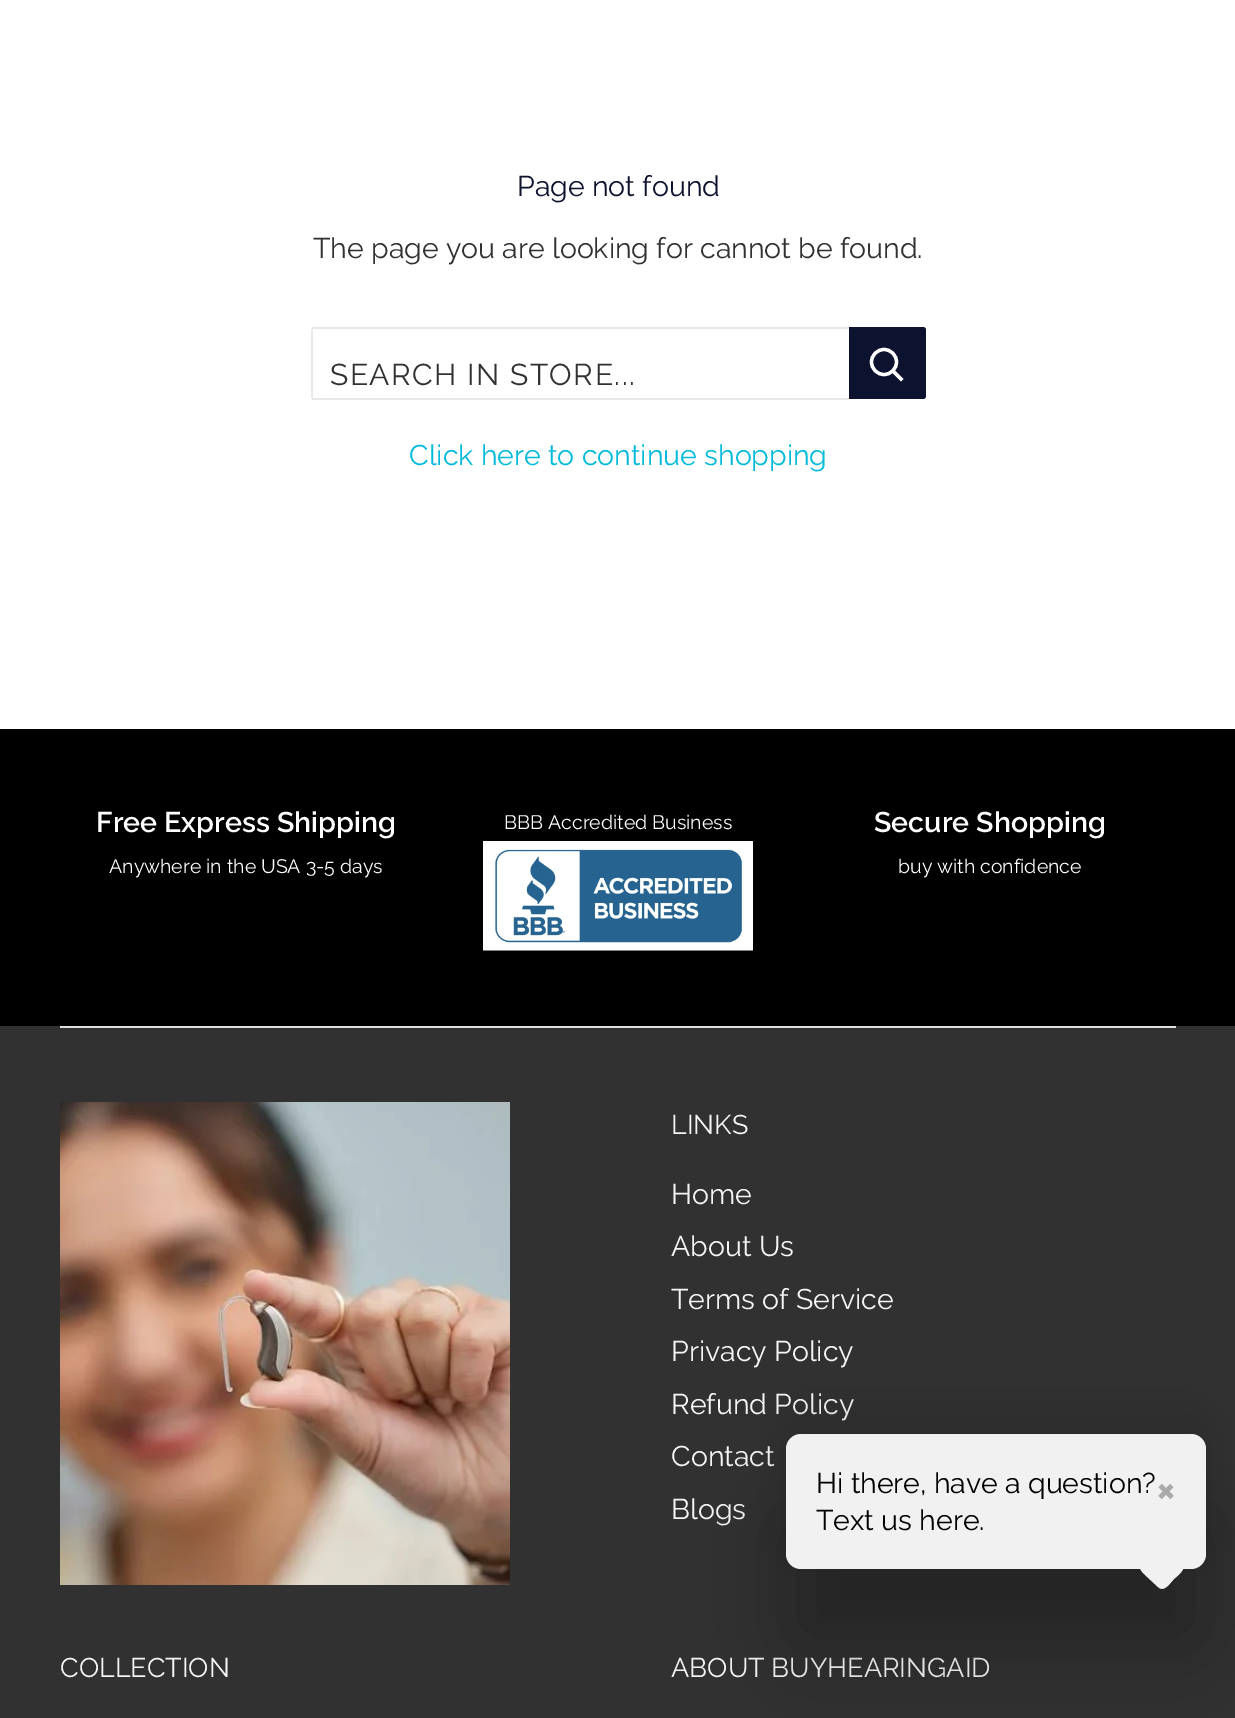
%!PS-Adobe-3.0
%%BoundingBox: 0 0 1235 1718
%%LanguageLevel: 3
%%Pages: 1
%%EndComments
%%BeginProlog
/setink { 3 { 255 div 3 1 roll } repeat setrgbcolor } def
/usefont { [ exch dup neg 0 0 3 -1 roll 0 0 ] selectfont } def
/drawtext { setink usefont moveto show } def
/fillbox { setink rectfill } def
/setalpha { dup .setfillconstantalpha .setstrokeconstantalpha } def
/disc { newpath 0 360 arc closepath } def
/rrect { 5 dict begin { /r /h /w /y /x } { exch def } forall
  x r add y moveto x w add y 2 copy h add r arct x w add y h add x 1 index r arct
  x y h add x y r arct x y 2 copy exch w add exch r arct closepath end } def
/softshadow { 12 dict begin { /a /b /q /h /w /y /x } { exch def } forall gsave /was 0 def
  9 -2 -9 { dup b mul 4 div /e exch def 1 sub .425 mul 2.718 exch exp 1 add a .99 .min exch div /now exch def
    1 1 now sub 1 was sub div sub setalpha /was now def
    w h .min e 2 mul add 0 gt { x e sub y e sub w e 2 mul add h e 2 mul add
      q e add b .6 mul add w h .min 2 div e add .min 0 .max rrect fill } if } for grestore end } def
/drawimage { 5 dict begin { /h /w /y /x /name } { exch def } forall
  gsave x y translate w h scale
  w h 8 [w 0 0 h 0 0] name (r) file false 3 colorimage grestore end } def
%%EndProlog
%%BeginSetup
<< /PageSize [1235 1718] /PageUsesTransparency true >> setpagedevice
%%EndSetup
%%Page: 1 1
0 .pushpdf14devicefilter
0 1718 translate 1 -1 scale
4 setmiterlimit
0 0 1235 1718 255 255 255 fillbox
(Page not found) 517 196 /Raleway-Regular 28.5 13 18 46 drawtext
(The page you are looking for cannot be found.) 313 258 /Raleway-Regular 28.5 49 49 49 drawtext
312 327 537 2 232 232 232 fillbox
312 398 537 2 232 232 232 fillbox
311 329 2 69 232 232 232 fillbox
/Raleway-Regular 30 usefont
49 49 49 setink
330 385 moveto 1.5 0 (SEARCH IN STORE...) ashow
13 18 46 setink
849 327 moveto 923 327 lineto 924.5 327 926 328.5 926 330 curveto 926 396 lineto 926 397.5 924.5 399 923 399 curveto 849 399 lineto closepath fill
255 255 255 setink
3.3 setlinewidth
2 setlinecap
901 379 moveto 893 371 lineto stroke
0 setlinecap
884 362 12.5 disc stroke
(Click here to continue shopping) 409 465 /Raleway-Regular 28.5 0 186 219 drawtext
0 729 1235 297 0 0 0 fillbox
(Free Express Shipping) 96 832 /Raleway-SemiBold 28.5 255 255 255 drawtext
(Anywhere in the USA 3-5 days) 109 873 /Raleway-Regular 19.5 255 255 255 drawtext
(BBB Accredited Business) 504 829 /Raleway-Regular 19.5 255 255 255 drawtext
(assets/img1.rgb) 483 841 270 110 drawimage
(Secure Shopping) 874 832 /Raleway-SemiBold 28.5 255 255 255 drawtext
(buy with confidence) 898 873 /Raleway-Regular 19.5 255 255 255 drawtext
0 1026 1235 692 49 49 49 fillbox
60 1026 1116 2 223 223 223 fillbox
(assets/img2.rgb) 60 1102 450 483 drawimage
(LINKS) 671 1134 /Raleway-Regular 27 245 245 245 drawtext
(Home) 671 1204 /Raleway-Regular 28.5 245 245 245 drawtext
(About Us) 671 1256 /Raleway-Regular 28.5 245 245 245 drawtext
(Terms of Service) 671 1309 /Raleway-Regular 28.5 245 245 245 drawtext
(Privacy Policy) 671 1361 /Raleway-Regular 28.5 245 245 245 drawtext
(Refund Policy) 671 1414 /Raleway-Regular 28.5 245 245 245 drawtext
(Contact) 671 1466 /Raleway-Regular 28.5 245 245 245 drawtext
(Blogs) 671 1519 /Raleway-Regular 28.5 245 245 245 drawtext
(COLLECTION) 60 1677 /Raleway-Regular 27 245 245 245 drawtext
(ABOUT BUYHEARINGAID) 671 1677 /Raleway-Regular 27 245 245 245 drawtext
0 0 0 setink
786 1416 420 135 15 22.5 0.12 softshadow
786 1515 420 135 15 41 0.25 softshadow
241 241 241 setink
786 1434 420 135 15 rrect fill
(Hi there, have a question?) 816 1493 /Raleway-Regular 28.5 0 0 0 drawtext
(Text us here.) 816 1530 /Raleway-Regular 28.5 0 0 0 drawtext
(×) 1156 1503 /Raleway-Bold 42 170 170 170 drawtext
241 241 241 setink
1166 1547 moveto 1169 1550 1182 1561 1183 1564 curveto 1186 1570 1177 1576 1174 1579 curveto 1170 1583 1164 1593 1158 1587 curveto 1144 1574 lineto 1135 1565 1142 1562 1150 1555 curveto 1153 1551 1160 1541 1166 1547 curveto closepath fill
.poppdf14devicefilter showpage
%%EOF
